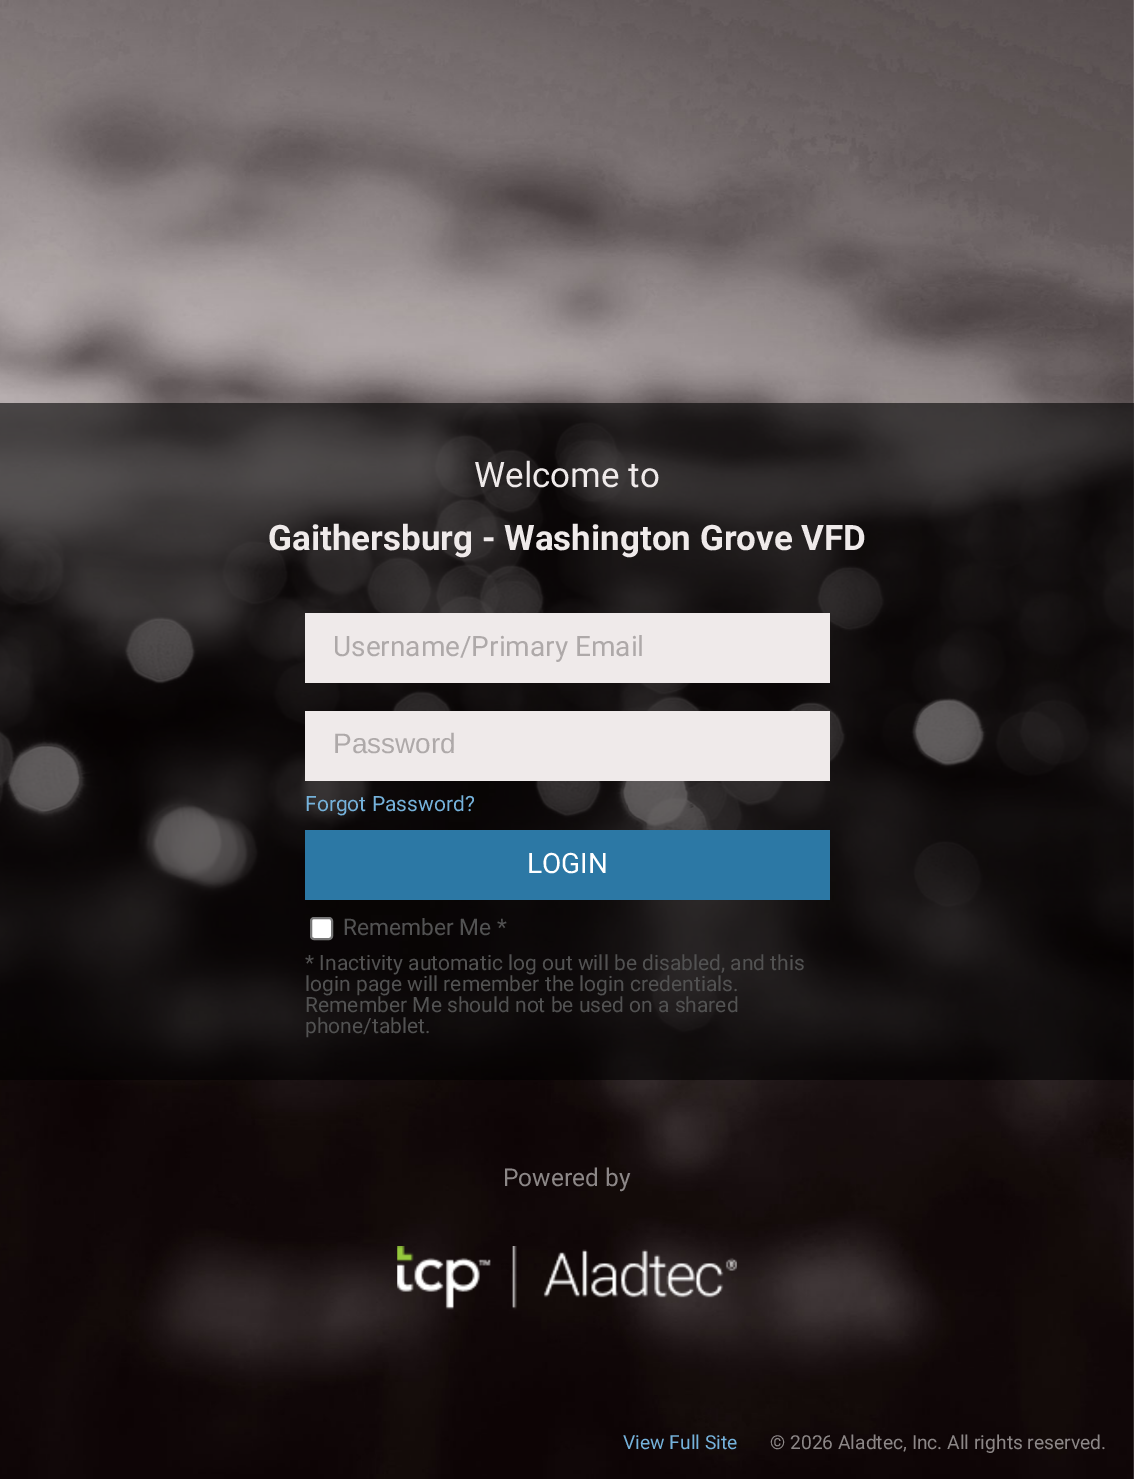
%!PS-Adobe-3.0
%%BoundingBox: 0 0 1134 1479
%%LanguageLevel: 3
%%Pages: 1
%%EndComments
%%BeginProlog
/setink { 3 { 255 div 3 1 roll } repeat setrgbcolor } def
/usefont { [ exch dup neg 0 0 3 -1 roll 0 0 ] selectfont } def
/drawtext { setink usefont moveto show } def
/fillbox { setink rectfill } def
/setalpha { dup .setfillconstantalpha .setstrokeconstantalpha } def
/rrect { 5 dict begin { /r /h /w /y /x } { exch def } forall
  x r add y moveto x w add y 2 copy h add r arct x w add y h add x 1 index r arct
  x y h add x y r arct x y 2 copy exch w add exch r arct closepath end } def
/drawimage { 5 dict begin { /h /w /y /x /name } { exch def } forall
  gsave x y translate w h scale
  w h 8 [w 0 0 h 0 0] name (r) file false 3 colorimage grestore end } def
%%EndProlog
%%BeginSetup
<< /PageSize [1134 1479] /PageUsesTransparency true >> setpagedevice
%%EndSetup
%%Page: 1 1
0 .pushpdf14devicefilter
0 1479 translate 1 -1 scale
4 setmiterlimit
0 0 1134 1479 255 255 255 fillbox
(assets/img1.rgb) 0 0 1134 1479 drawimage
0.6 setalpha
0 403 1134 677 0 0 0 fillbox
1 setalpha
(Welcome to) 474 487 /Roboto-Regular 35 239 234 234 drawtext
(Gaithersburg - Washington Grove VFD) 268 550 /Roboto-Bold 35 239 234 234 drawtext
305 613 525 70 239 234 234 fillbox
(Username/Primary Email) 333 656 /Roboto-Regular 28 174 169 169 drawtext
305 711 525 70 239 234 234 fillbox
(Password) 333 753 /LiberationSans-Regular 28 174 169 169 drawtext
(Forgot Password?) 305 811 /Roboto-Regular 21 117 178 219 drawtext
305 830 525 70 44 120 165 fillbox
(LOGIN) 527 873 /Roboto-Regular 28 255 255 255 drawtext
311 918 21 21 3 rrect gsave fill grestore
118 118 118 setink
2 setlinewidth
stroke
(Remember Me *) 343 935 /Roboto-Regular 22.75 82 82 82 drawtext
(* Inactivity automatic log out will be disabled, and this) 305 970 /Roboto-Regular 21 82 82 82 drawtext
(login page will remember the login credentials.) 305 991 /Roboto-Regular 21 82 82 82 drawtext
(Remember Me should not be used on a shared) 305 1012 /Roboto-Regular 21 82 82 82 drawtext
(phone/tablet.) 305 1033 /Roboto-Regular 21 82 82 82 drawtext
(Powered by) 503 1186 /Roboto-Regular 24.5 140 135 135 drawtext
(assets/img2.rgb) 397 1246 340 64 drawimage
(View Full Site) 623 1449 /Roboto-Regular 19.25 117 178 219 drawtext
(© 2026 Aladtec, Inc. All rights reserved.) 770 1449 /Roboto-Regular 19.25 140 135 135 drawtext
.poppdf14devicefilter showpage
%%EOF
